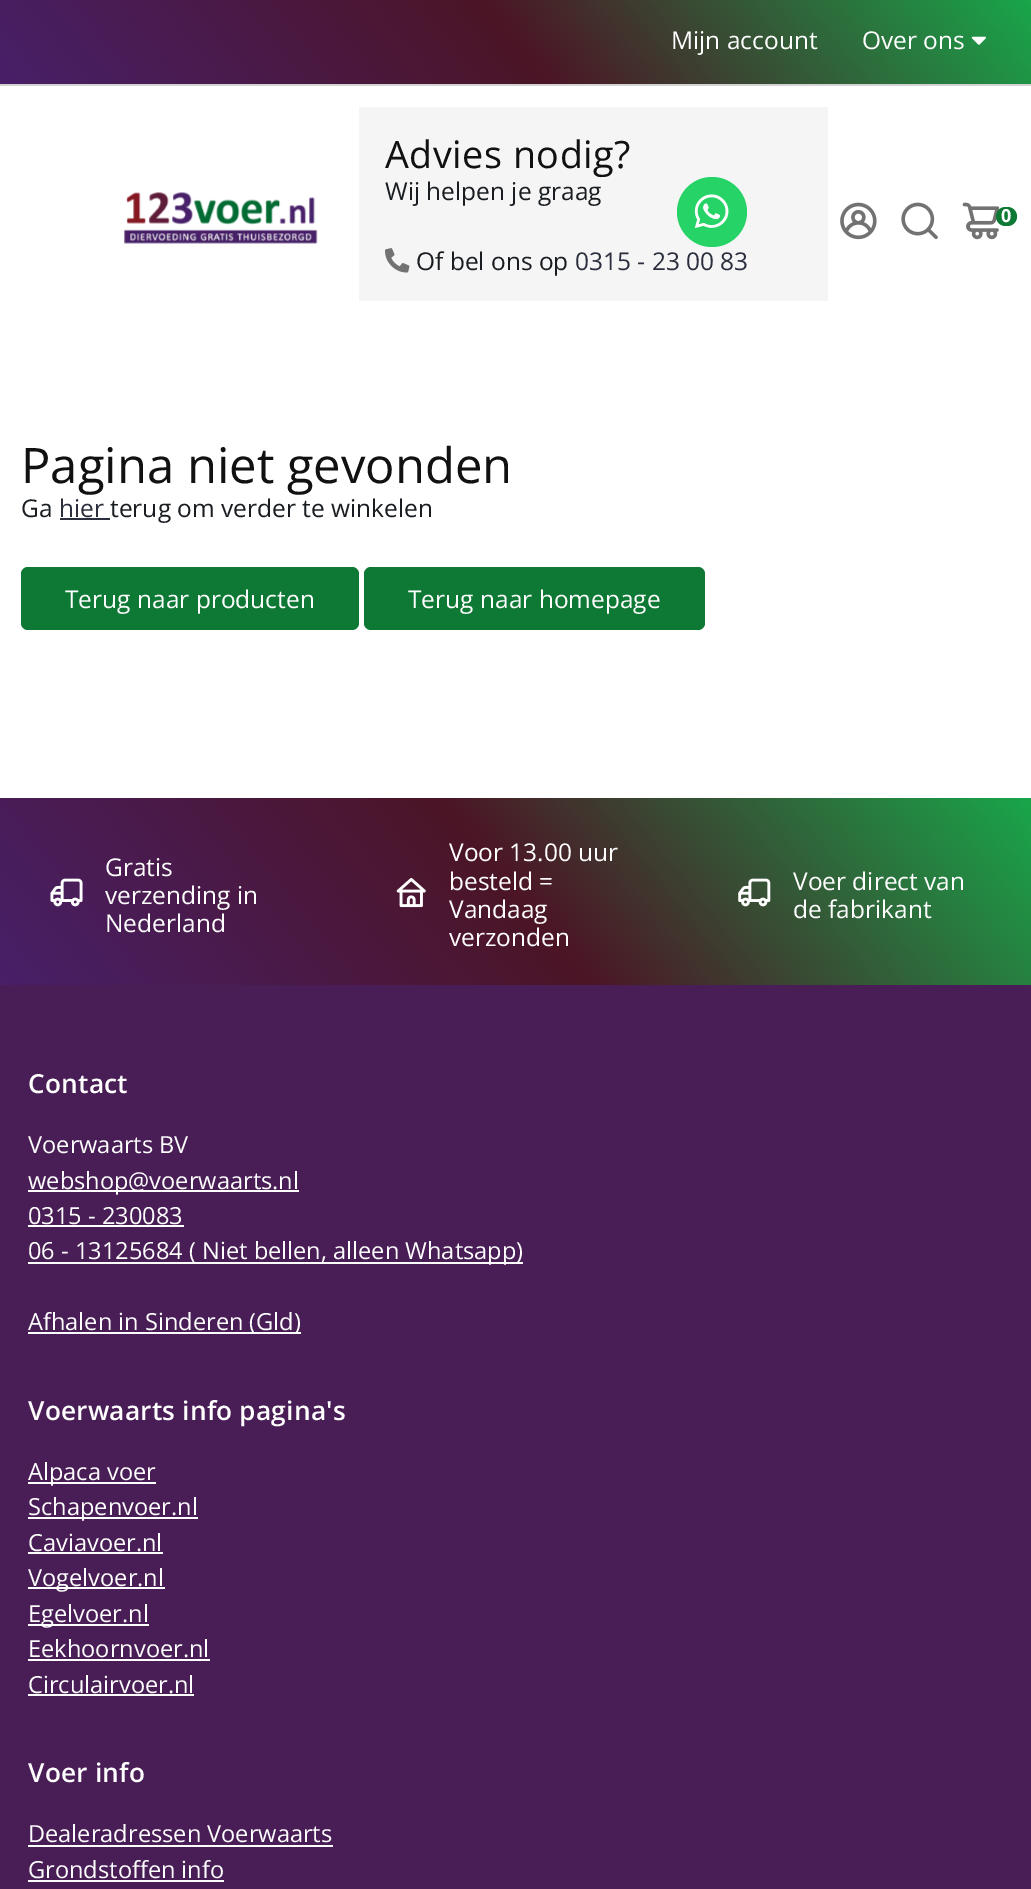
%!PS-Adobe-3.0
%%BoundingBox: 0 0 1031 1889
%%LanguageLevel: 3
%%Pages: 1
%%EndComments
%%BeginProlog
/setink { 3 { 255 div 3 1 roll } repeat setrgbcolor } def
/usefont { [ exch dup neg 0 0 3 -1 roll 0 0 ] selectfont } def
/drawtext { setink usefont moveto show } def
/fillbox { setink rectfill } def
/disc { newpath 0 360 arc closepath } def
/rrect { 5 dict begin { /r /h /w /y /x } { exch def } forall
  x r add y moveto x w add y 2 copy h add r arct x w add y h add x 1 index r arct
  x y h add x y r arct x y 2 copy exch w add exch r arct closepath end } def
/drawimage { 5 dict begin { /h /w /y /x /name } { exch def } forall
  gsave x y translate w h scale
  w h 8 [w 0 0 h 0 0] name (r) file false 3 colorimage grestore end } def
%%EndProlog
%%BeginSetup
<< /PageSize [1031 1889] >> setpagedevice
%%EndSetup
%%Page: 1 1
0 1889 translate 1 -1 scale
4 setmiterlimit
0 0 1031 1889 255 255 255 fillbox
gsave 0 0 moveto 1031 0 lineto 1031 84 lineto 0 84 lineto closepath clip newpath
<< /ShadingType 2 /ColorSpace /DeviceRGB /Coords [184 311 849 -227] /Extend [true true] /Function << /FunctionType 3 /Domain [0 1] /Functions [<< /FunctionType 2 /Domain [0 1] /C0 [0.282 0.125 0.412] /C1 [0.298 0.082 0.149] /N 1 >> << /FunctionType 2 /Domain [0 1] /C0 [0.298 0.082 0.149] /C1 [0.098 0.651 0.29] /N 1 >>] /Bounds [0.5] /Encode [0 1 0 1] >> >> shfill grestore
(Mijn account) 671 49 /OpenSans-Regular 24.5 255 255 255 drawtext
(Over ons) 862 49 /OpenSans-Regular 24.5 255 255 255 drawtext
(assets/img1.rgb) 971 36 15 9 drawimage
0 84 1031 2 211 211 211 fillbox
(assets/img2.rgb) 124 192 194 52 drawimage
359 107 469 194 245 245 245 fillbox
/OpenSans-Regular 37.75 usefont
17 17 17 setink
385 168 moveto 0.5 0 (Advies nodig?) ashow
(Wij helpen je graag) 385 200 /OpenSans-Regular 24.5 25 29 33 drawtext
37 211 102 setink
712 212 35 disc fill
(assets/img3.rgb) 694 194 35 35 drawimage
(assets/img4.rgb) 385 248 25 25 drawimage
(Of bel ons op) 416 270 /OpenSans-Regular 24.5 25 29 33 drawtext
(0315 - 23 00 83) 575 270 /OpenSans-Regular 24.5 43 47 61 drawtext
(assets/img5.rgb) 840 202 37 38 drawimage
(assets/img6.rgb) 901 202 37 38 drawimage
(assets/img7.rgb) 962 202 38 38 drawimage
14 121 53 setink
996 207 21 19 9.5 rrect fill
(0) 1001 222 /OpenSans-Bold 18 255 255 255 drawtext
(Pagina niet gevonden) 21 483 /OpenSans-Regular 49 17 17 17 drawtext
(Ga) 21 517 /OpenSans-Regular 24.5 25 29 33 drawtext
(hier) 59 517 /OpenSans-Regular 24.5 43 47 61 drawtext
60 518 50 2 43 47 61 fillbox
(terug om verder te winkelen) 110 517 /OpenSans-Regular 24.5 25 29 33 drawtext
14 121 53 setink
21 567 338 63 7 rrect fill
(Terug naar producten) 65 608 /OpenSans-Regular 24.5 255 255 255 drawtext
14 121 53 setink
364 567 341 63 7 rrect fill
(Terug naar homepage) 408 608 /OpenSans-Regular 24.5 255 255 255 drawtext
gsave 0 798 moveto 1031 798 lineto 1031 985 lineto 0 985 lineto closepath clip newpath
<< /ShadingType 2 /ColorSpace /DeviceRGB /Coords [159 1181 874 602] /Extend [true true] /Function << /FunctionType 3 /Domain [0 1] /Functions [<< /FunctionType 2 /Domain [0 1] /C0 [0.282 0.125 0.412] /C1 [0.298 0.082 0.149] /N 1 >> << /FunctionType 2 /Domain [0 1] /C0 [0.298 0.082 0.149] /C1 [0.098 0.651 0.29] /N 1 >>] /Bounds [0.5] /Encode [0 1 0 1] >> >> shfill grestore
(assets/img8.rgb) 50 878 33 29 drawimage
(Gratis) 105 876 /OpenSans-Regular 24.5 255 255 255 drawtext
(verzending in) 105 904 /OpenSans-Regular 24.5 255 255 255 drawtext
(Nederland) 105 932 /OpenSans-Regular 24.5 255 255 255 drawtext
(assets/img9.rgb) 396 878 30 30 drawimage
(Voor 13.00 uur) 449 861 /OpenSans-Regular 24.5 255 255 255 drawtext
(besteld =) 449 890 /OpenSans-Regular 24.5 255 255 255 drawtext
(Vandaag) 449 918 /OpenSans-Regular 24.5 255 255 255 drawtext
(verzonden) 449 946 /OpenSans-Regular 24.5 255 255 255 drawtext
(assets/img10.rgb) 738 878 33 29 drawimage
(Voer direct van) 793 890 /OpenSans-Regular 24.5 255 255 255 drawtext
(de fabrikant) 793 918 /OpenSans-Regular 24.5 255 255 255 drawtext
0 985 1031 904 73 29 86 fillbox
/OpenSans-SemiBold 26.25 usefont
255 255 255 setink
28 1093 moveto 0.2 0 (Contact) ashow
(Voerwaarts BV) 28 1153 /OpenSans-Regular 23.6 255 255 255 drawtext
28 1190 271 2 255 255 255 fillbox
(webshop@voerwaarts.nl) 28 1189 /OpenSans-Regular 23.6 255 255 255 drawtext
(0315 - 230083) 28 1224 /OpenSans-Regular 23.6 255 255 255 drawtext
28 1225 156 2 255 255 255 fillbox
28 1262 495 2 255 255 255 fillbox
(06 - 13125684 \( Niet bellen, alleen Whatsapp\)) 28 1259 /OpenSans-Regular 23.6 255 255 255 drawtext
28 1332 273 2 255 255 255 fillbox
(Afhalen in Sinderen \(Gld\)) 28 1330 /OpenSans-Regular 23.6 255 255 255 drawtext
/OpenSans-SemiBold 26.25 usefont
28 1420 moveto 0.2 0 (Voerwaarts info pagina's) ashow
28 1482 128 2 255 255 255 fillbox
(Alpaca voer) 28 1480 /OpenSans-Regular 23.6 255 255 255 drawtext
28 1517 170 2 255 255 255 fillbox
(Schapenvoer.nl) 28 1515 /OpenSans-Regular 23.6 255 255 255 drawtext
(Caviavoer.nl) 28 1551 /OpenSans-Regular 23.6 255 255 255 drawtext
28 1552 135 2 255 255 255 fillbox
28 1587 137 2 255 255 255 fillbox
(Vogelvoer.nl) 28 1586 /OpenSans-Regular 23.6 255 255 255 drawtext
28 1624 121 2 255 255 255 fillbox
(Egelvoer.nl) 28 1622 /OpenSans-Regular 23.6 255 255 255 drawtext
(Eekhoornvoer.nl) 28 1657 /OpenSans-Regular 23.6 255 255 255 drawtext
28 1659 182 2 255 255 255 fillbox
(Circulairvoer.nl) 28 1693 /OpenSans-Regular 23.6 255 255 255 drawtext
28 1694 166 2 255 255 255 fillbox
/OpenSans-SemiBold 26.25 usefont
28 1782 moveto 0.2 0 (Voer info) ashow
(Dealeradressen Voerwaarts) 28 1842 /OpenSans-Regular 23.6 255 255 255 drawtext
28 1845 305 2 255 255 255 fillbox
(Grondstoffen info) 28 1878 /OpenSans-Regular 23.6 255 255 255 drawtext
28 1880 196 2 255 255 255 fillbox
showpage
%%EOF
